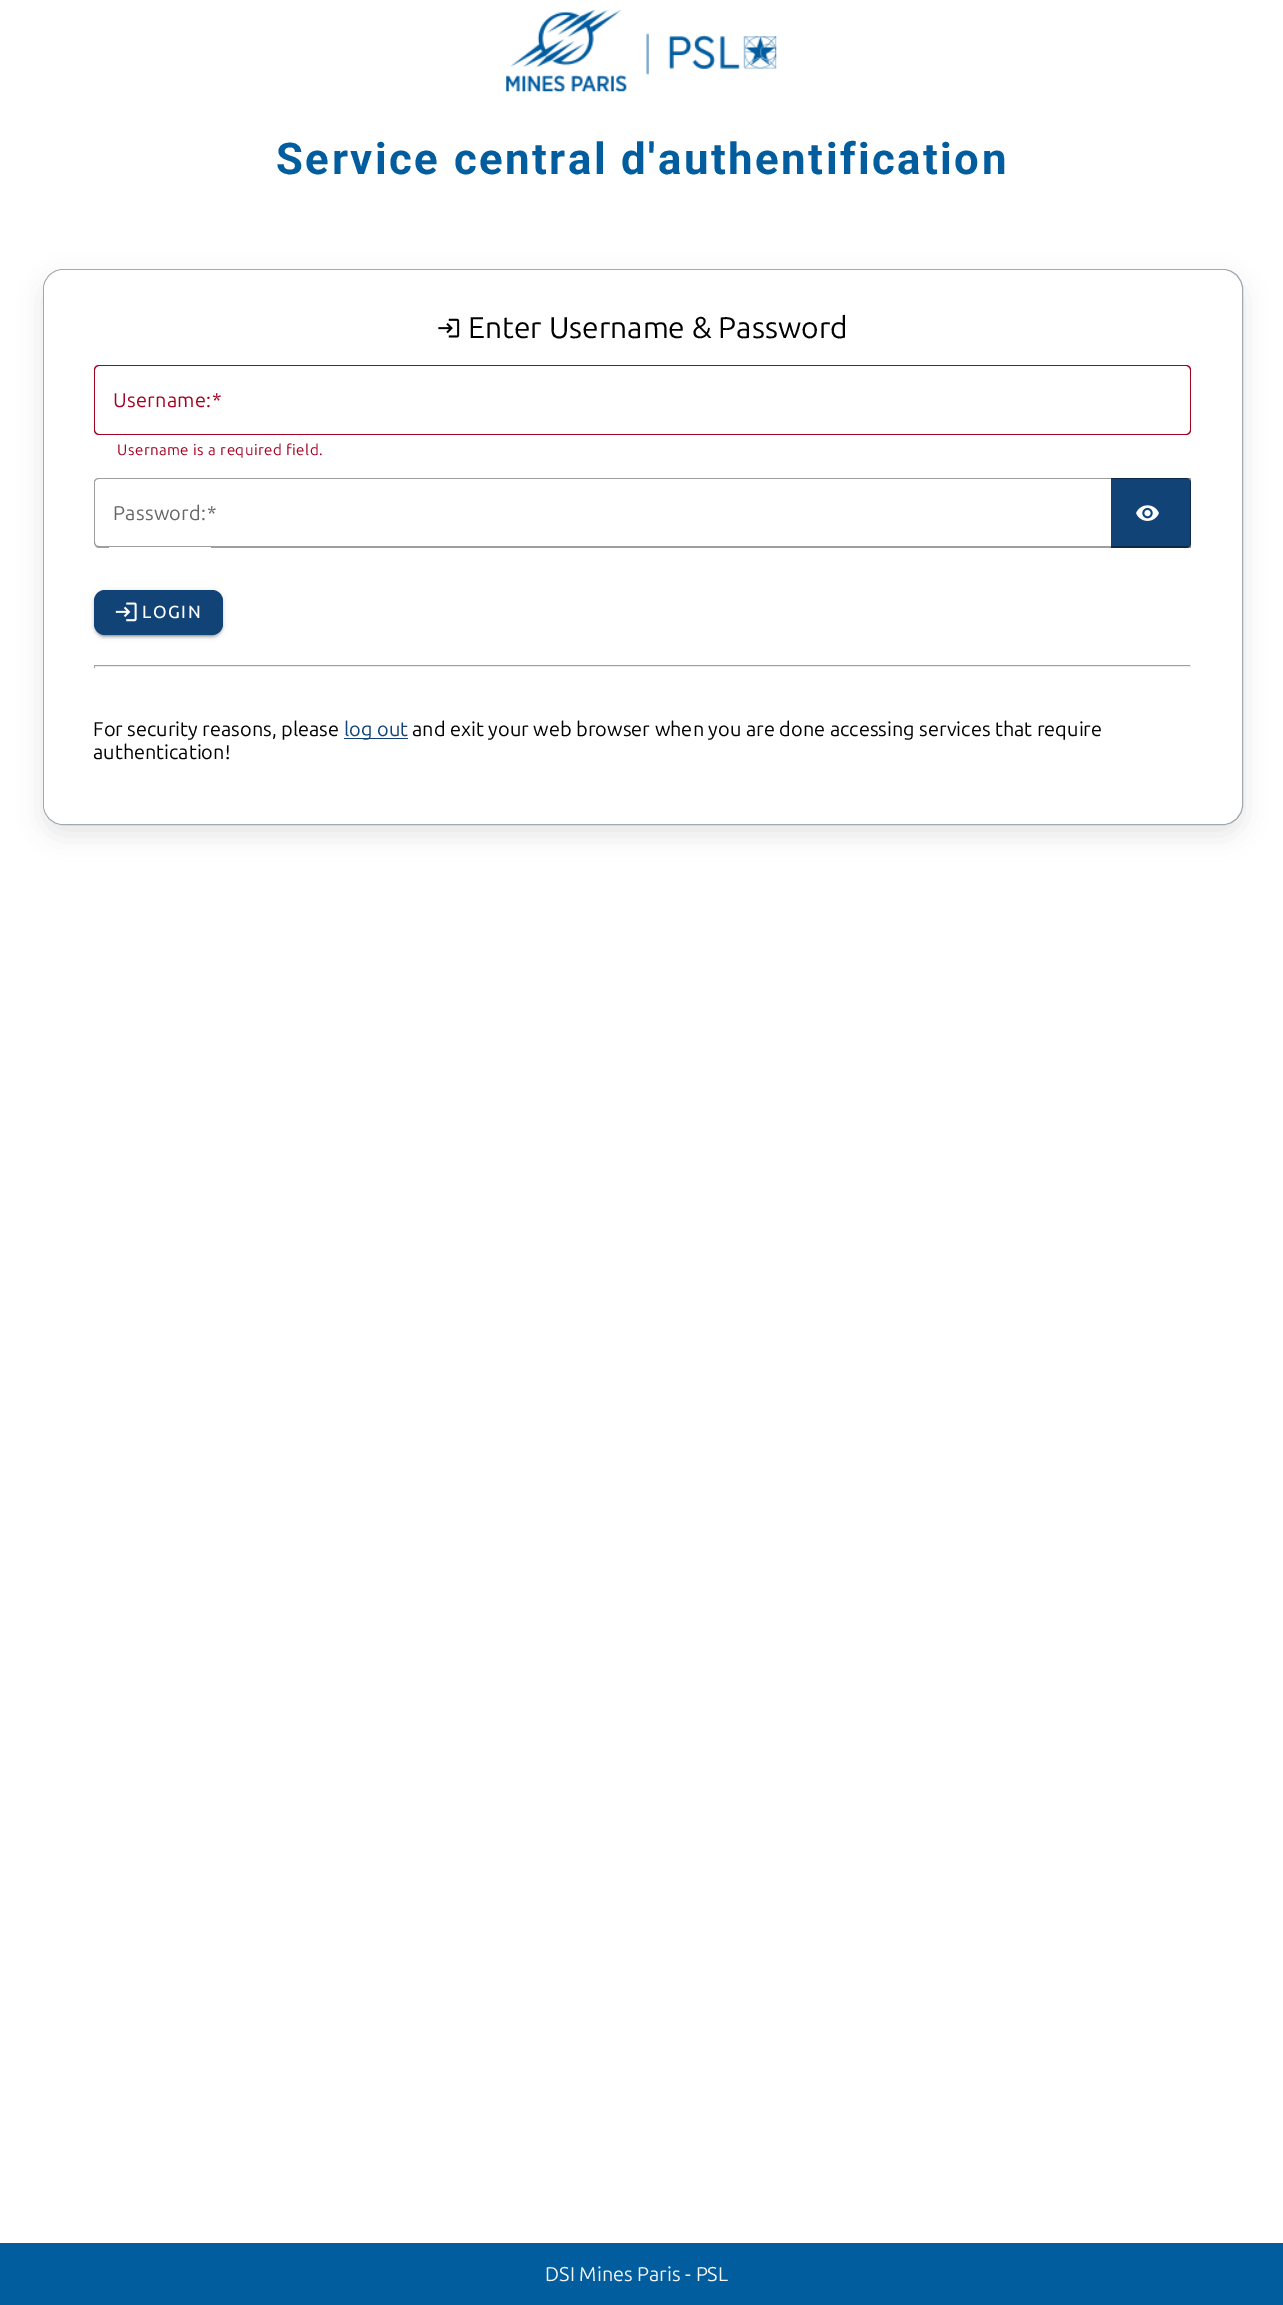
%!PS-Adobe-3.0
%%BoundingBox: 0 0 1283 2305
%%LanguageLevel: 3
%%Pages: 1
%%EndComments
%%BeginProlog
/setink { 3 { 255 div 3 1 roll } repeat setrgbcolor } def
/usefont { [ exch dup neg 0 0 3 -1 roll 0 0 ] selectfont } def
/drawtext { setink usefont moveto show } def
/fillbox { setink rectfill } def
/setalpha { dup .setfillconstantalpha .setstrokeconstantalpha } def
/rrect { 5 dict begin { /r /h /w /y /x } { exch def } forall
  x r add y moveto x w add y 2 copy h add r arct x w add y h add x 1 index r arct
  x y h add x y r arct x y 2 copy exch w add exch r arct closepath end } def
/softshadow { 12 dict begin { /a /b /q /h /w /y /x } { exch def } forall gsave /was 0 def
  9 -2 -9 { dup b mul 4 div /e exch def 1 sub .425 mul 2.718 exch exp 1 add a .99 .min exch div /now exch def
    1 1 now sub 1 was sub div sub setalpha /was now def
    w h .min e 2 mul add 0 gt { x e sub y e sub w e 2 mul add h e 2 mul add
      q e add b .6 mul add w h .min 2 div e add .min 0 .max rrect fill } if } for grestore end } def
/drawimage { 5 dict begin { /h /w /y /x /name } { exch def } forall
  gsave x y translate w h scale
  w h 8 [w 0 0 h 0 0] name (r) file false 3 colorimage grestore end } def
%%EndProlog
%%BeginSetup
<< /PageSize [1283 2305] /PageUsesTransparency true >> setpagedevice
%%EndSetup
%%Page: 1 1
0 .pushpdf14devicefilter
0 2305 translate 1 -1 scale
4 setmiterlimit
0 0 1283 2305 255 255 255 fillbox
(assets/img1.rgb) 506 10 271 82 drawimage
/Roboto-Bold 43.75 usefont
1 93 158 setink
276 174 moveto 2.5 0 (Service central d'authentification) ashow
gsave
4 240 moveto 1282 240 lineto 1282 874 lineto 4 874 lineto closepath 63 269 moveto 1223 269 lineto 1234 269 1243 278 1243 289 curveto 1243 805 lineto 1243 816 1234 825 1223 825 curveto 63 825 lineto 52 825 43 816 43 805 curveto 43 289 lineto 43 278 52 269 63 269 curveto closepath eoclip newpath
0 0 0 setink
43 279 1200 556 20 12.5 0.1 softshadow
grestore
160 168 176 setink
43.5 269.5 1199 555 19.5 rrect stroke
255 255 255 setink
44 270 1197 554 20 rrect fill
(assets/img2.rgb) 438 318 22 20 drawimage
(Enter Username & Password) 468 338 /Ubuntu-Regular 30 0 0 0 drawtext
162 3 35 setink
99 365 moveto 109 365 lineto 109 435 lineto 99 435 lineto 96 435 94 433 94 430 curveto 94 370 lineto 94 367 96 365 99 365 curveto closepath 99 366 moveto 109 366 lineto 109 434 lineto 99 434 lineto 97 434 95 432 95 430 curveto 95 370 lineto 95 368 97 366 99 366 curveto closepath eofill
109 365 107 1 162 3 35 fillbox
109 434 107 1 162 3 35 fillbox
/Ubuntu-Regular 20 usefont
113 407 moveto 0.25 0 (Username:) ashow
216 365 moveto 1186 365 lineto 1189 365 1191 367 1191 370 curveto 1191 430 lineto 1191 433 1189 435 1186 435 curveto 216 435 lineto closepath 216 366 moveto 1186 366 lineto 1188 366 1190 368 1190 370 curveto 1190 430 lineto 1190 432 1188 434 1186 434 curveto 216 434 lineto closepath eofill
212 407 moveto 0.25 0 (*) ashow
/Ubuntu-Regular 15 usefont
117 455 moveto 0.5 0 (Username is a required field.) ashow
158 158 158 setink
99 478 moveto 109 478 lineto 109 548 lineto 99 548 lineto 96 548 94 545 94 542 curveto 94 482 lineto 94 480 96 478 99 478 curveto closepath 99 479 moveto 109 479 lineto 109 546 lineto 99 546 lineto 97 546 95 545 95 542 curveto 95 482 lineto 95 480 97 479 99 479 curveto closepath eofill
109 478 102 1 158 158 158 fillbox
109 546 102 1 158 158 158 fillbox
/Ubuntu-Regular 20 usefont
102 102 102 setink
113 520 moveto 0.25 0 (Password:) ashow
207 520 moveto 0.25 0 (*) ashow
17 67 119 setink
1111 478 moveto 1186 478 lineto 1189 478 1191 480 1191 483 curveto 1191 543 lineto 1191 546 1189 548 1186 548 curveto 1111 548 lineto closepath fill
0.38 setalpha
0 0 0 setink
211 478 moveto 1191 478 lineto 1190 479 lineto 211 479 lineto closepath fill
1191 478 moveto 1191 548 lineto 1190 546 lineto 1190 479 lineto closepath fill
1191 548 moveto 211 548 lineto 211 546 lineto 1190 546 lineto closepath fill
1 setalpha
(assets/img3.rgb) 1136 505 23 16 drawimage
94 591 129 45 11 3 0.12 softshadow
94 593 129 45 11 1 0.14 softshadow
96 596 124 40 9 0.5 0.2 softshadow
17 67 119 setink
94 590 129 45 11 rrect fill
(assets/img4.rgb) 115 602 22 20 drawimage
/Ubuntu-Medium 17.5 usefont
255 255 255 setink
142 618 moveto 1.5 0 (LOGIN) ashow
94 665 1097 1 159 159 159 fillbox
1190 665 1 3 238 238 238 fillbox
94 666 1097 1 238 238 238 fillbox
94 665 1 3 159 159 159 fillbox
(For security reasons, please) 93 736 /Ubuntu-Regular 20 0 0 0 drawtext
344 738 64 1 17 67 119 fillbox
(log out) 344 736 /Ubuntu-Regular 20 17 67 119 drawtext
(and exit your web browser when you are done accessing services that require) 412 736 /Ubuntu-Regular 20 0 0 0 drawtext
(authentication!) 93 759 /Ubuntu-Regular 20 0 0 0 drawtext
0 2243 1283 62 1 93 158 fillbox
(DSI Mines Paris - PSL) 545 2281 /Ubuntu-Regular 20 245 245 245 drawtext
.poppdf14devicefilter showpage
%%EOF
